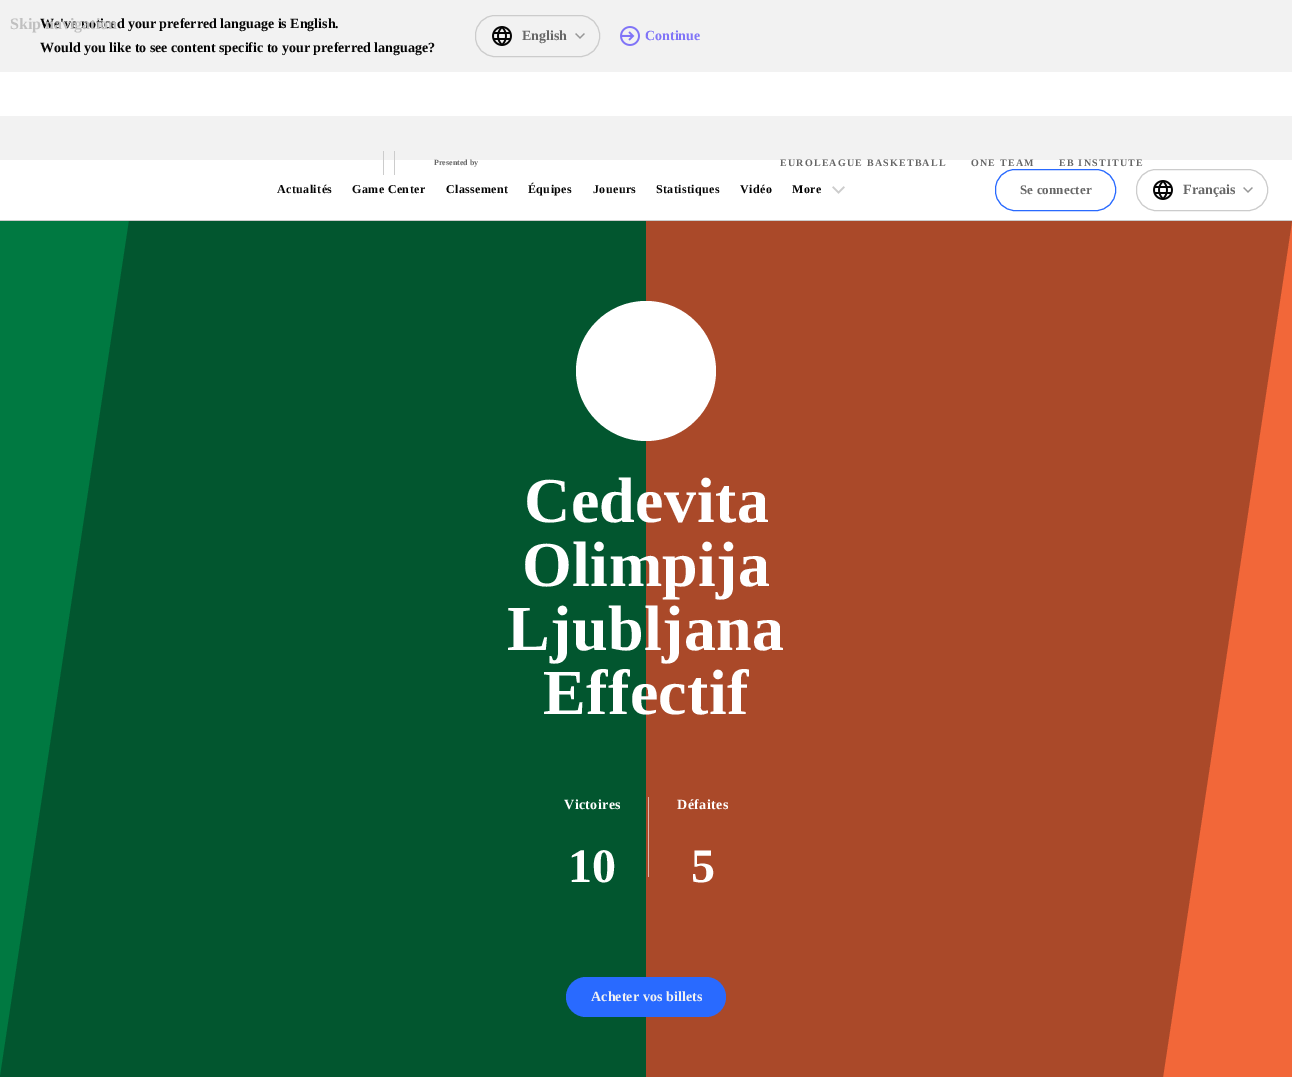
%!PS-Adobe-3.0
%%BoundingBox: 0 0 1292 1089
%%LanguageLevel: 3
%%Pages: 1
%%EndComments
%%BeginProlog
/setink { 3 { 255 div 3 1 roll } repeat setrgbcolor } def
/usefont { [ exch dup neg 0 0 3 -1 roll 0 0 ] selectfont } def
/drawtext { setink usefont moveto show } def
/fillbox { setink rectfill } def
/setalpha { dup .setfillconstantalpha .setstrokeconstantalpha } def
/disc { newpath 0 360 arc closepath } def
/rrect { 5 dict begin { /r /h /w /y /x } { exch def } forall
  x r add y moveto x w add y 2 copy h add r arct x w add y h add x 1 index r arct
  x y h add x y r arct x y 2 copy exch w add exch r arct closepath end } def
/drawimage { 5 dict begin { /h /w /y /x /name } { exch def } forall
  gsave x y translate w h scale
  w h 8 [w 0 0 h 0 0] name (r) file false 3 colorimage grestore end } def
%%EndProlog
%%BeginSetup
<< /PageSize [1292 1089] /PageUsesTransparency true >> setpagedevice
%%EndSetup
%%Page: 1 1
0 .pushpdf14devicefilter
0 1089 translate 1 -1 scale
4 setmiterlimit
0 0 1292 1089 255 255 255 fillbox
0 0 1292 72 242 242 242 fillbox
(We've noticed your preferred language is English.) 40 28 /LiberationSerif-Bold 14 5 5 5 drawtext
(Skip navigation) 10 29 /LiberationSerif-Bold 16 192 192 192 drawtext
(Would you like to see content specific to your preferred language?) 40 52 /LiberationSerif-Bold 14 5 5 5 drawtext
204 204 204 setink
475.5 15.5 124 41 19.5 rrect stroke
(assets/img1.rgb) 492 26 20 20 drawimage
(English) 522 40 /LiberationSerif-Bold 14 102 102 102 drawtext
(assets/img2.rgb) 575 33 10 6 drawimage
(assets/img3.rgb) 620 26 20 20 drawimage
(Continue) 645 40 /LiberationSerif-Bold 14 128 116 247 drawtext
0 116 1292 44 242 242 242 fillbox
383 151 1 24 204 204 204 fillbox
394 151 1 24 204 204 204 fillbox
(Presented by) 434 165 /LiberationSerif-Bold 8 102 102 102 drawtext
/LiberationSerif-Bold 10 usefont
780 166 moveto 1.2 0 (EUROLEAGUE BASKETBALL) ashow
971 166 moveto 1.2 0 (ONE TEAM) ashow
1059 166 moveto 1.2 0 (EB INSTITUTE) ashow
0 220 1292 1 204 204 204 fillbox
/LiberationSerif-Bold 12 usefont
5 5 5 setink
277 193 moveto 0.4 0 (Actualités) ashow
352 193 moveto 0.4 0 (Game Center) ashow
446 193 moveto 0.4 0 (Classement) ashow
528 193 moveto 0.4 0 (Équipes) ashow
593 193 moveto 0.4 0 (Joueurs) ashow
656 193 moveto 0.4 0 (Statistiques) ashow
740 193 moveto 0.4 0 (Vidéo) ashow
792 193 moveto 0.4 0 (More) ashow
(assets/img4.rgb) 832 186 13 8 drawimage
41 106 255 setink
995.5 169.5 120 41 19.5 rrect stroke
/LiberationSerif-Bold 13 usefont
102 102 102 setink
1020 194 moveto 0.1 0 (Se connecter) ashow
204 204 204 setink
1136.5 169.5 131 41 19.5 rrect stroke
(assets/img5.rgb) 1153 180 20 20 drawimage
(Français) 1183 194 /LiberationSerif-Bold 14 102 102 102 drawtext
(assets/img6.rgb) 1243 187 10 6 drawimage
0 221 646 856 0 121 65 fillbox
646 221 646 856 242 103 57 fillbox
0.3 setalpha
5 5 5 setink
129 221 moveto 1292 221 lineto 1163 1077 lineto 0 1077 lineto closepath fill
1 setalpha
255 255 255 setink
646 371 70 disc fill
/LiberationSerif-Bold 64 usefont
524 522 moveto 0.4 0 (Cedevita) ashow
522 586 moveto 0.4 0 (Olimpija) ashow
507 650 moveto 0.4 0 (Ljubljana) ashow
543 714 moveto 0.4 0 (Effectif) ashow
/LiberationSerif-Bold 14 usefont
564 809 moveto 0.4 0 (Victoires) ashow
648 797 1 80 221 182 170 fillbox
(10) 568 882 /LiberationSerif-Bold 48 255 255 255 drawtext
/LiberationSerif-Bold 14 usefont
677 809 moveto 0.4 0 (Défaites) ashow
(5) 691 882 /LiberationSerif-Bold 48 255 255 255 drawtext
41 106 255 setink
566 977 160 40 20 rrect fill
/LiberationSerif-Bold 14 usefont
242 242 242 setink
591 1001 moveto 0.1 0 (Acheter vos billets) ashow
.poppdf14devicefilter showpage
%%EOF
